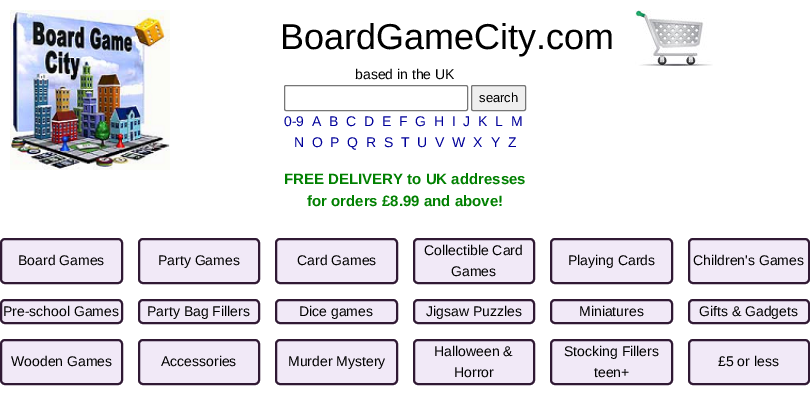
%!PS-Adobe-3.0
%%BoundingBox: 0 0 810 400
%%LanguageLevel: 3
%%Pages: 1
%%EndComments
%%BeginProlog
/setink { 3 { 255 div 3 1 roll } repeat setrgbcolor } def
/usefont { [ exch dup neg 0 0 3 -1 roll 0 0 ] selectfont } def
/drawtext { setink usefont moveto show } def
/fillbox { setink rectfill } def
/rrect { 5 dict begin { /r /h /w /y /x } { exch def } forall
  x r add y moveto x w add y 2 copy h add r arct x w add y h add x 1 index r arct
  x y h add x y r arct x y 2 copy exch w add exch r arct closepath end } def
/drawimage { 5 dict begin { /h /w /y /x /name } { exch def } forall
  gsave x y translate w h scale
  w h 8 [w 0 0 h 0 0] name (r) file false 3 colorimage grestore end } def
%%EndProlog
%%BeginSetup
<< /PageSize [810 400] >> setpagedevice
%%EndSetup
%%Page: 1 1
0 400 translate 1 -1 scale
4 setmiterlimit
0 0 810 400 255 255 255 fillbox
(assets/img1.rgb) 10 10 160 160 drawimage
(BoardGameCity.com) 280 49 /LiberationSans-Regular 36 0 0 0 drawtext
(based in the UK) 355 79 /LiberationSans-Regular 14 0 0 0 drawtext
118 118 118 setink
284.5 85.5 183 25 1.5 rrect stroke
239 239 239 setink
471.5 85.5 54 25 1.5 rrect gsave fill grestore
118 118 118 setink
stroke
(search) 479 102 /LiberationSans-Regular 13 0 0 0 drawtext
(0-9) 284 126 /LiberationSans-Regular 14 0 0 153 drawtext
(A) 312 126 /LiberationSans-Regular 14 0 0 153 drawtext
(B) 329 126 /LiberationSans-Regular 14 0 0 153 drawtext
(C) 346 126 /LiberationSans-Regular 14 0 0 153 drawtext
(D) 364 126 /LiberationSans-Regular 14 0 0 153 drawtext
(E) 382 126 /LiberationSans-Regular 14 0 0 153 drawtext
(F) 399 126 /LiberationSans-Regular 14 0 0 153 drawtext
(G) 415 126 /LiberationSans-Regular 14 0 0 153 drawtext
(H) 434 126 /LiberationSans-Regular 14 0 0 153 drawtext
(I) 452 126 /LiberationSans-Regular 14 0 0 153 drawtext
(J) 463 126 /LiberationSans-Regular 14 0 0 153 drawtext
(K) 478 126 /LiberationSans-Regular 14 0 0 153 drawtext
(L) 495 126 /LiberationSans-Regular 14 0 0 153 drawtext
(M) 511 126 /LiberationSans-Regular 14 0 0 153 drawtext
(N) 294 147 /LiberationSans-Regular 14 0 0 153 drawtext
(O) 312 147 /LiberationSans-Regular 14 0 0 153 drawtext
(P) 330 147 /LiberationSans-Regular 14 0 0 153 drawtext
(Q) 347 147 /LiberationSans-Regular 14 0 0 153 drawtext
(R) 366 147 /LiberationSans-Regular 14 0 0 153 drawtext
(S) 384 147 /LiberationSans-Regular 14 0 0 153 drawtext
(T) 401 147 /LiberationSans-Regular 14 0 0 153 drawtext
(U) 417 147 /LiberationSans-Regular 14 0 0 153 drawtext
(V) 435 147 /LiberationSans-Regular 14 0 0 153 drawtext
(W) 452 147 /LiberationSans-Regular 14 0 0 153 drawtext
(X) 473 147 /LiberationSans-Regular 14 0 0 153 drawtext
(Y) 491 147 /LiberationSans-Regular 14 0 0 153 drawtext
(Z) 508 147 /LiberationSans-Regular 14 0 0 153 drawtext
(FREE DELIVERY to UK addresses) 284 184 /LiberationSans-Bold 15 0 128 0 drawtext
(for orders £8.99 and above!) 307 206 /LiberationSans-Bold 15 0 128 0 drawtext
(assets/img2.rgb) 635 10 78 56 drawimage
241 233 247 setink
1 239 121 44 4 rrect gsave fill grestore
48 25 52 setink
2 setlinewidth
stroke
(Board Games) 18 265 /LiberationSans-Regular 14 0 0 0 drawtext
241 233 247 setink
139 239 120 44 4 rrect gsave fill grestore
48 25 52 setink
stroke
(Party Games) 158 265 /LiberationSans-Regular 14 0 0 0 drawtext
241 233 247 setink
276 239 121 44 4 rrect gsave fill grestore
48 25 52 setink
stroke
(Card Games) 297 265 /LiberationSans-Regular 14 0 0 0 drawtext
241 233 247 setink
414 239 120 44 4 rrect gsave fill grestore
48 25 52 setink
stroke
(Collectible Card) 424 255 /LiberationSans-Regular 14 0 0 0 drawtext
(Games) 451 276 /LiberationSans-Regular 14 0 0 0 drawtext
241 233 247 setink
551 239 121 44 4 rrect gsave fill grestore
48 25 52 setink
stroke
(Playing Cards) 568 265 /LiberationSans-Regular 14 0 0 0 drawtext
241 233 247 setink
689 239 120 44 4 rrect gsave fill grestore
48 25 52 setink
stroke
(Children's Games) 693 265 /LiberationSans-Regular 14 0 0 0 drawtext
241 233 247 setink
1 300 121 23 4 rrect gsave fill grestore
48 25 52 setink
stroke
(Pre-school Games) 3 316 /LiberationSans-Regular 14 0 0 0 drawtext
241 233 247 setink
139 300 120 23 4 rrect gsave fill grestore
48 25 52 setink
stroke
(Party Bag Fillers) 147 316 /LiberationSans-Regular 14 0 0 0 drawtext
241 233 247 setink
276 300 121 23 4 rrect gsave fill grestore
48 25 52 setink
stroke
(Dice games) 299 316 /LiberationSans-Regular 14 0 0 0 drawtext
241 233 247 setink
414 300 120 23 4 rrect gsave fill grestore
48 25 52 setink
stroke
(Jigsaw Puzzles) 426 316 /LiberationSans-Regular 14 0 0 0 drawtext
241 233 247 setink
551 300 121 23 4 rrect gsave fill grestore
48 25 52 setink
stroke
(Miniatures) 579 316 /LiberationSans-Regular 14 0 0 0 drawtext
241 233 247 setink
689 300 120 23 4 rrect gsave fill grestore
48 25 52 setink
stroke
(Gifts & Gadgets) 699 316 /LiberationSans-Regular 14 0 0 0 drawtext
241 233 247 setink
1 340 121 44 4 rrect gsave fill grestore
48 25 52 setink
stroke
(Wooden Games) 11 366 /LiberationSans-Regular 14 0 0 0 drawtext
241 233 247 setink
139 340 120 44 4 rrect gsave fill grestore
48 25 52 setink
stroke
(Accessories) 161 366 /LiberationSans-Regular 14 0 0 0 drawtext
241 233 247 setink
276 340 121 44 4 rrect gsave fill grestore
48 25 52 setink
stroke
(Murder Mystery) 288 366 /LiberationSans-Regular 14 0 0 0 drawtext
241 233 247 setink
414 340 120 44 4 rrect gsave fill grestore
48 25 52 setink
stroke
(Halloween &) 434 356 /LiberationSans-Regular 14 0 0 0 drawtext
(Horror) 454 377 /LiberationSans-Regular 14 0 0 0 drawtext
241 233 247 setink
551 340 121 44 4 rrect gsave fill grestore
48 25 52 setink
stroke
(Stocking Fillers) 564 356 /LiberationSans-Regular 14 0 0 0 drawtext
(teen+) 594 377 /LiberationSans-Regular 14 0 0 0 drawtext
241 233 247 setink
689 340 120 44 4 rrect gsave fill grestore
48 25 52 setink
stroke
(£5 or less) 718 366 /LiberationSans-Regular 14 0 0 0 drawtext
showpage
%%EOF
